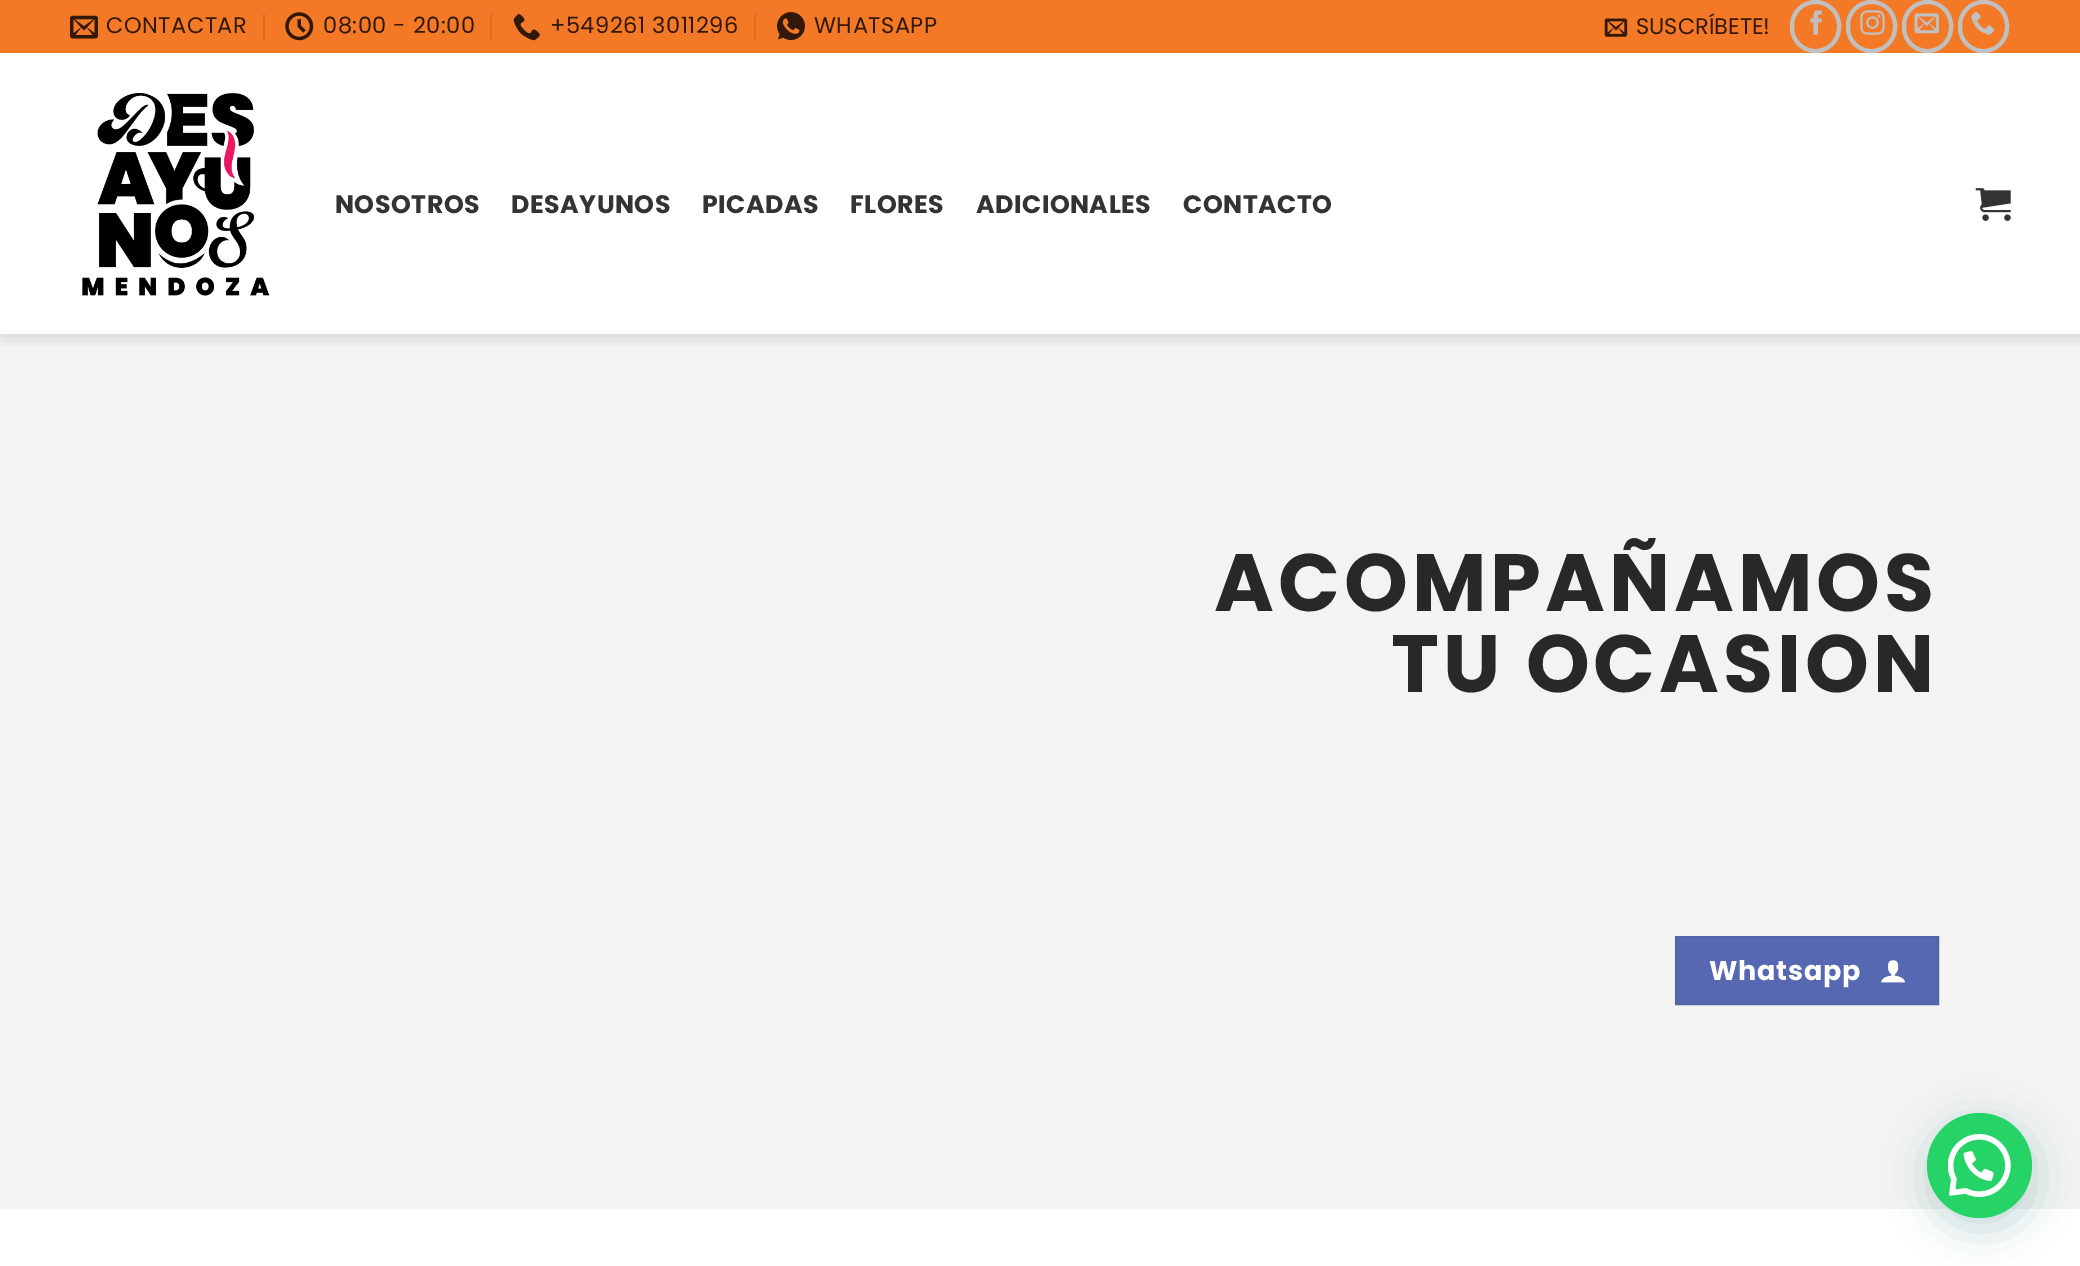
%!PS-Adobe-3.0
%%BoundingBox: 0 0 2080 1266
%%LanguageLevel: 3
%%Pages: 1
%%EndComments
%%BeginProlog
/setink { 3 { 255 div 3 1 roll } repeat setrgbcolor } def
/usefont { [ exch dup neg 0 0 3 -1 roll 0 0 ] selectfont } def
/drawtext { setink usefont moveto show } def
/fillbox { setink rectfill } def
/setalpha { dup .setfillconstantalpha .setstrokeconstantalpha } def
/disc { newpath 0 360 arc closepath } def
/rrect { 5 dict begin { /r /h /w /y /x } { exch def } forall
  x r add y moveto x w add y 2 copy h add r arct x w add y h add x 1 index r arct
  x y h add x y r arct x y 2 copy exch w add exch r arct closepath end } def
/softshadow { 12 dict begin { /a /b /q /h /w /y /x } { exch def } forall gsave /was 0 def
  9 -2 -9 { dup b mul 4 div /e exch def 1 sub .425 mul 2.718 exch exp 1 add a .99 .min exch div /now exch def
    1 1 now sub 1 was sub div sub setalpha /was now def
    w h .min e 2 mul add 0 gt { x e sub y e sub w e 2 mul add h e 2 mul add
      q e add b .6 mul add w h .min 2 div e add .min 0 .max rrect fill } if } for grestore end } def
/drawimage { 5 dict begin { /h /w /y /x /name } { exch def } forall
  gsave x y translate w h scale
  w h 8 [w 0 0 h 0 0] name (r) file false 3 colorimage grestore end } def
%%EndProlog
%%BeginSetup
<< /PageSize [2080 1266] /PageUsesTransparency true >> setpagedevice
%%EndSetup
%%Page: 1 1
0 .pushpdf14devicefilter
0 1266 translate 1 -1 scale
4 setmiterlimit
0 0 2080 1266 255 255 255 fillbox
0 334 2080 875 243 243 243 fillbox
gsave
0 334 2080 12 rectclip
0 0 0 setink
2 2 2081 334 0 9 0.15 softshadow
grestore
0 0 2080 53 244 121 38 fillbox
(assets/img1.rgb) 70 15 28 24 drawimage
/Poppins-Regular 22.5 usefont
49 24 8 setink
106 33 moveto 0.5 0 (CONTACTAR) ashow
263 14 2 26 220 109 34 fillbox
(assets/img2.rgb) 285 12 29 29 drawimage
49 24 8 setink
323 33 moveto 0.5 0 (08:00 - 20:00) ashow
490 14 2 26 220 109 34 fillbox
(assets/img3.rgb) 513 14 27 27 drawimage
49 24 8 setink
550 33 moveto 0.5 0 (+549261 3011296) ashow
754 14 2 26 220 109 34 fillbox
(assets/img4.rgb) 777 12 28 28 drawimage
49 24 8 setink
814 33 moveto 0.5 0 (WHATSAPP) ashow
(assets/img5.rgb) 1604 18 24 19 drawimage
(SUSCRÍBETE!) 1636 34 /Poppins-Regular 22.5 49 24 8 drawtext
192 192 192 setink
4 setlinewidth
1792 2 47 49 23.5 rrect stroke
(assets/img6.rgb) 1810 10 12 25 drawimage
1848 2 47 49 23.5 rrect stroke
(assets/img7.rgb) 1860 10 25 25 drawimage
1904 2 47 49 23.5 rrect stroke
(assets/img8.rgb) 1914 13 25 21 drawimage
1960 2 47 49 23.5 rrect stroke
(assets/img9.rgb) 1971 11 24 24 drawimage
(assets/img10.rgb) 82 92 188 204 drawimage
/Poppins-Bold 25.25 usefont
51 51 51 setink
335 213 moveto 0.5 0 (NOSOTROS) ashow
511 213 moveto 0.5 0 (DESAYUNOS) ashow
702 213 moveto 0.5 0 (PICADAS) ashow
850 213 moveto 0.5 0 (FLORES) ashow
976 213 moveto 0.5 0 (ADICIONALES) ashow
1183 213 moveto 0.5 0 (CONTACTO) ashow
(assets/img11.rgb) 1975 188 36 33 drawimage
/Poppins-Bold 81.25 usefont
40 40 40 setink
1214 611 moveto 4 0 (ACOMPAÑAMOS) ashow
1391 692 moveto 4 0 (TU OCASION) ashow
86 104 177 setink
1676 937 moveto 1938 937 lineto 1938 1004 lineto 1676 1004 lineto closepath gsave fill grestore
82 99 168 setink
2 setlinewidth
stroke
/Poppins-Bold 27 usefont
255 255 255 setink
1709 980 moveto 0.75 0 (Whatsapp) ashow
(assets/img12.rgb) 1881 960 24 23 drawimage
7 94 84 setink
1929 1124 105 105 52.5 21 0.24 softshadow
37 211 102 setink
1979.5 1165.5 52.5 disc fill
(assets/img13.rgb) 1948 1134 63 63 drawimage
.poppdf14devicefilter showpage
%%EOF
